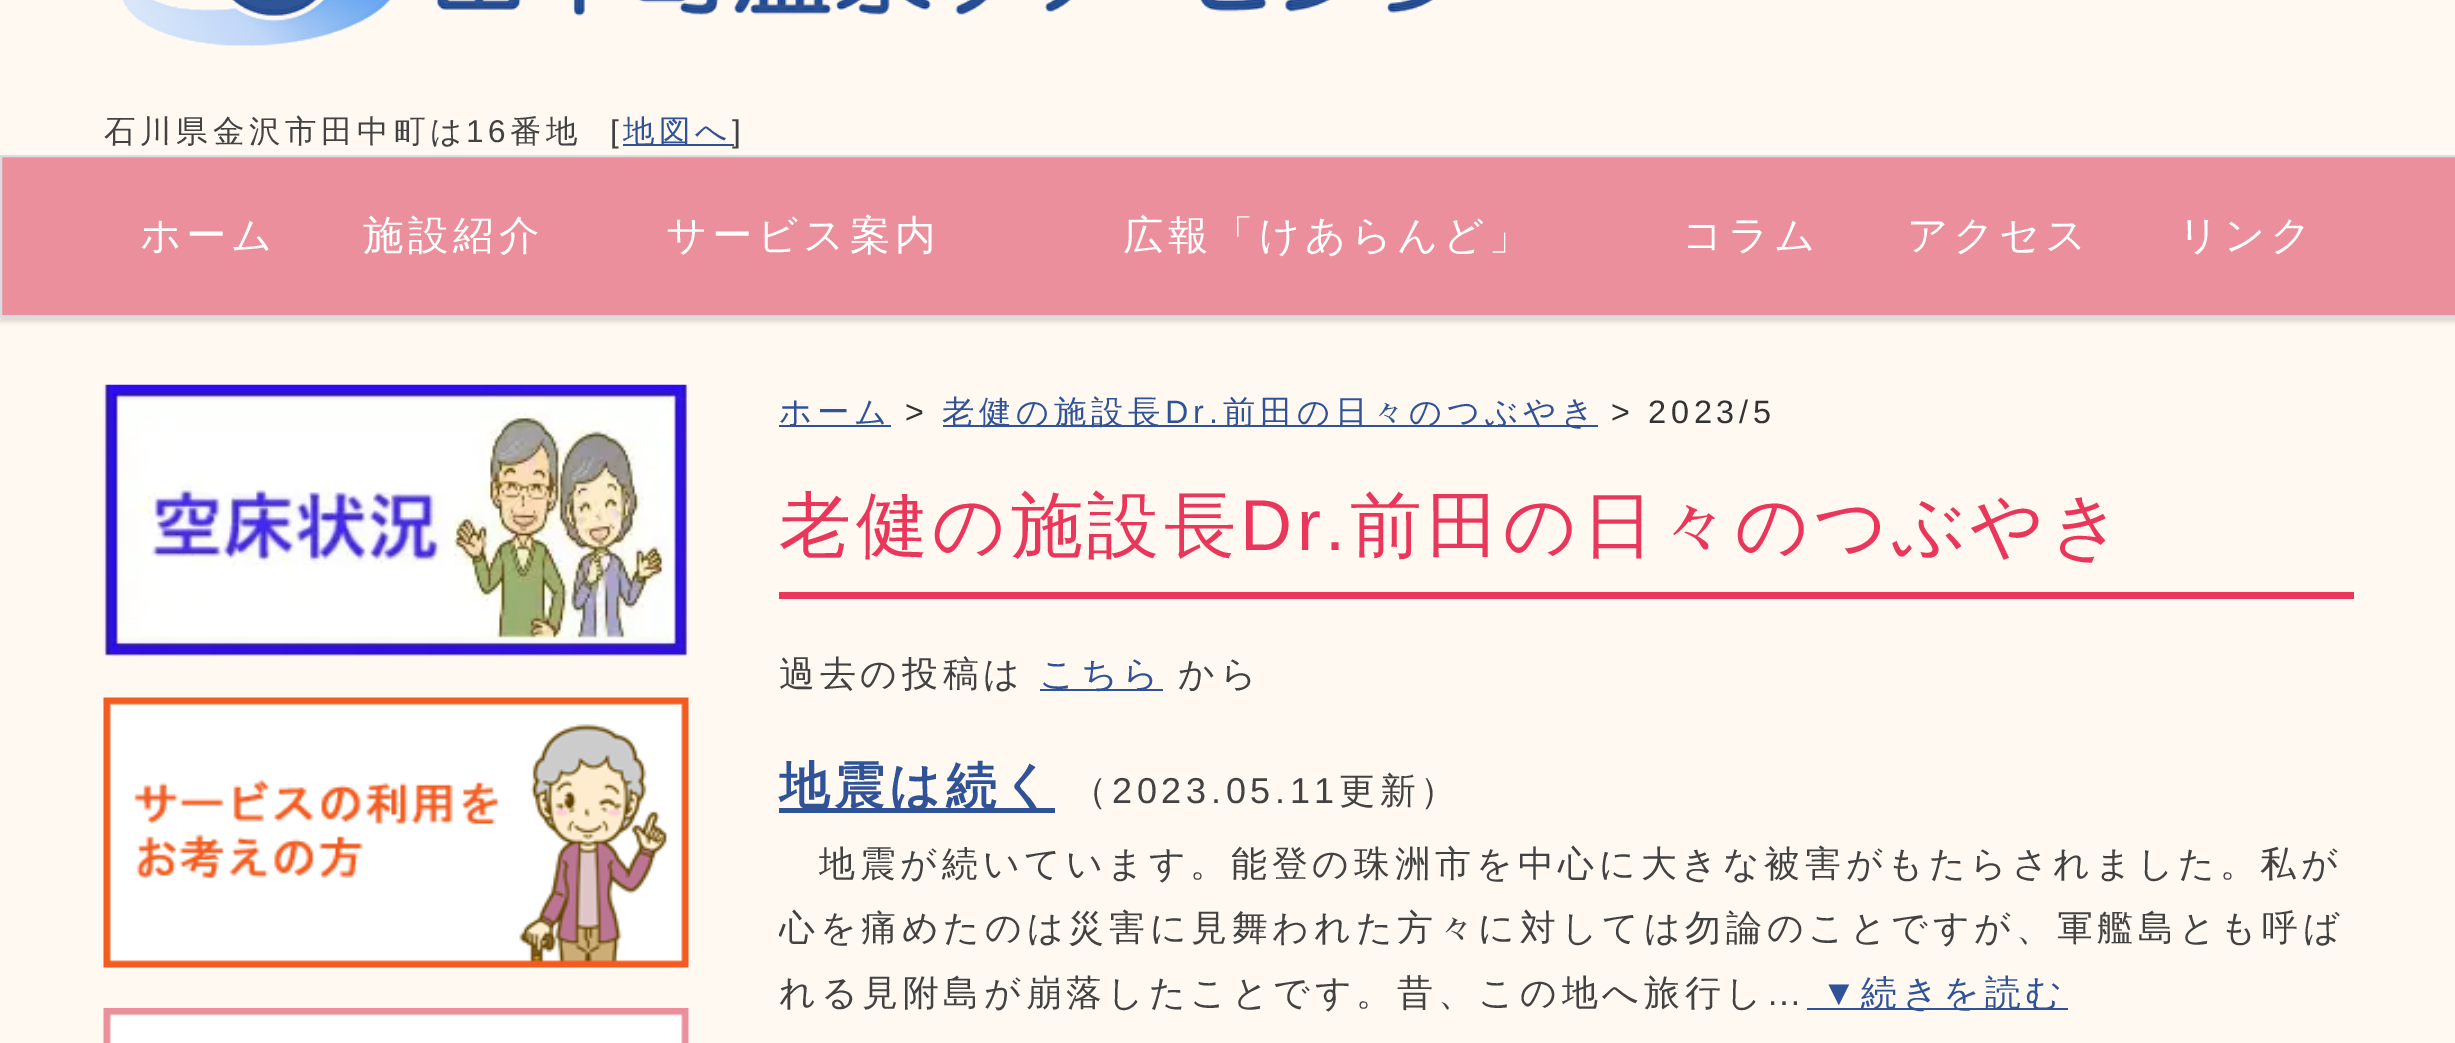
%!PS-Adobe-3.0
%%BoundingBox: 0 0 2455 1043
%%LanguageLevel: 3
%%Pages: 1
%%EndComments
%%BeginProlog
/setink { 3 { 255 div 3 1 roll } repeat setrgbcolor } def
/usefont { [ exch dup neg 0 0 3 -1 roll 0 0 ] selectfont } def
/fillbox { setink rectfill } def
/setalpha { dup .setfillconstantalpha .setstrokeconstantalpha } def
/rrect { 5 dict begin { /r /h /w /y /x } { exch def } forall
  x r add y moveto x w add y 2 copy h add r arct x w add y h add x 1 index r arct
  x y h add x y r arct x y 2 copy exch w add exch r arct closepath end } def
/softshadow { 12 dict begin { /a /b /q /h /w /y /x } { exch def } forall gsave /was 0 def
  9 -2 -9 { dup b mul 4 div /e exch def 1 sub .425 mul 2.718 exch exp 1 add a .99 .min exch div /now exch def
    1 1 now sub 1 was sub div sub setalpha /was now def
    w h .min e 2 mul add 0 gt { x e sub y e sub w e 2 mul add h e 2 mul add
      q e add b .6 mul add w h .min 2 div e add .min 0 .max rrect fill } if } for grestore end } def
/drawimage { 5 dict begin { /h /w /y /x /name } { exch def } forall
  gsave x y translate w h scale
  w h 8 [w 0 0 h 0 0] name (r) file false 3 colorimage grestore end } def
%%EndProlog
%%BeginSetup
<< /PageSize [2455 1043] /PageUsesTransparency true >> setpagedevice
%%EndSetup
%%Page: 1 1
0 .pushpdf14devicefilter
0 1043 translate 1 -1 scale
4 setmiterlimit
0 0 2455 1043 255 249 241 fillbox
(assets/img1.rgb) 122 0 1311 47 drawimage
/WenQuanYiZenHei-Medium 31.5 usefont
66 66 66 setink
104 142 moveto 4.7 0 (石川県金沢市田中町は) ashow
/LiberationSans-Regular 31.5 usefont
466 142 moveto 4.7 0 (16) ashow
/WenQuanYiZenHei-Medium 31.5 usefont
510 142 moveto 4.7 0 (番地) ashow
/LiberationSans-Regular 31.5 usefont
610 142 moveto 4.7 0 ([) ashow
623 144 111 2 48 83 152 fillbox
/WenQuanYiZenHei-Medium 31.5 usefont
623 142 moveto 4.7 0 (地図へ) ashow
/LiberationSans-Regular 31.5 usefont
66 66 66 setink
732 142 moveto 4.7 0 (]) ashow
0 0 0 setink
0 160 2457 162 0 2 0.12 softshadow
234 143 155 setink
1 156 moveto 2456 156 lineto 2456 316 lineto 1 316 lineto closepath gsave fill grestore
218 220 224 setink
2 setlinewidth
stroke
/WenQuanYiZenHei-Medium 40.5 usefont
255 255 255 setink
140 249 moveto 4.7 0 (ホーム) ashow
363 249 moveto 4.7 0 (施設紹介) ashow
666 249 moveto 4.7 0 (サービス案内) ashow
1123 249 moveto 4.7 0 (広報「けあらんど」) ashow
1682 249 moveto 4.7 0 (コラム) ashow
1907 249 moveto 4.7 0 (アクセス) ashow
2178 249 moveto 4.7 0 (リンク) ashow
(assets/img2.rgb) 103 384 586 273 drawimage
(assets/img3.rgb) 103 697 586 271 drawimage
(assets/img4.rgb) 103 1008 586 35 drawimage
779 425 112 2 48 83 152 fillbox
/WenQuanYiZenHei-Medium 32.4 usefont
779 423 moveto 4.7 0 (ホーム) ashow
/LiberationSans-Regular 32.4 usefont
51 51 51 setink
905 423 moveto 4.7 0 (>) ashow
943 425 655 2 48 83 152 fillbox
/WenQuanYiZenHei-Medium 32.4 usefont
942 423 moveto 4.7 0 (老健の施設長) ashow
/LiberationSans-Regular 32.4 usefont
1165 423 moveto 4.7 0 (Dr.) ashow
/WenQuanYiZenHei-Medium 32.4 usefont
1223 423 moveto 4.7 0 (前田の日々のつぶやき) ashow
/LiberationSans-Regular 32.4 usefont
51 51 51 setink
1611 423 moveto 4.7 0 (> 2023/5) ashow
779 592 1575 7 234 54 90 fillbox
/WenQuanYiZenHei-Medium 72 usefont
779 550 moveto 4.7 0 (老健の施設長) ashow
/LiberationSans-Regular 72 usefont
1240 550 moveto 4.7 0 (Dr.) ashow
/WenQuanYiZenHei-Medium 72 usefont
1350 550 moveto 4.7 0 (前田の日々のつぶやき) ashow
/WenQuanYiZenHei-Medium 36 usefont
66 66 66 setink
779 686 moveto 4.7 0 (過去の投稿は) ashow
1040 689 123 2 48 83 152 fillbox
1039 686 moveto 4.7 0 (こちら) ashow
66 66 66 setink
1178 686 moveto 4.7 0 (から) ashow
779 808 276 5 48 83 152 fillbox
/WenQuanYiZenHei-Bold 50.5 usefont
779 803 moveto 4.7 0 (地震は続く) ashow
/WenQuanYiZenHei-Medium 36 usefont
66 66 66 setink
1071 803 moveto 4.7 0 (（) ashow
/LiberationSans-Regular 36 usefont
1112 803 moveto 4.7 0 (2023.05.11) ashow
/WenQuanYiZenHei-Medium 36 usefont
1339 803 moveto 4.7 0 (更新）) ashow
819 876 moveto 4.7 0 (地震が続いています。能登の珠洲市を中心に大きな被害がもたらされました。私が) ashow
gsave
779 461 1575 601 rectclip
779 940 moveto 4.7 0 (心を痛めたのは災害に見舞われた方々に対しては勿論のことですが、軍艦島とも呼ば) ashow
grestore
779 1005 moveto 4.7 0 (れる見附島が崩落したことです。昔、この地へ旅行し) ashow
/LiberationSans-Regular 36 usefont
1766 1005 moveto 4.7 0 (…) ashow
1807 1008 261 2 48 83 152 fillbox
1821 1005 moveto 4.7 0 (▼) ashow
/WenQuanYiZenHei-Medium 36 usefont
1861 1005 moveto 4.7 0 (続きを読む) ashow
.poppdf14devicefilter showpage
%%EOF
